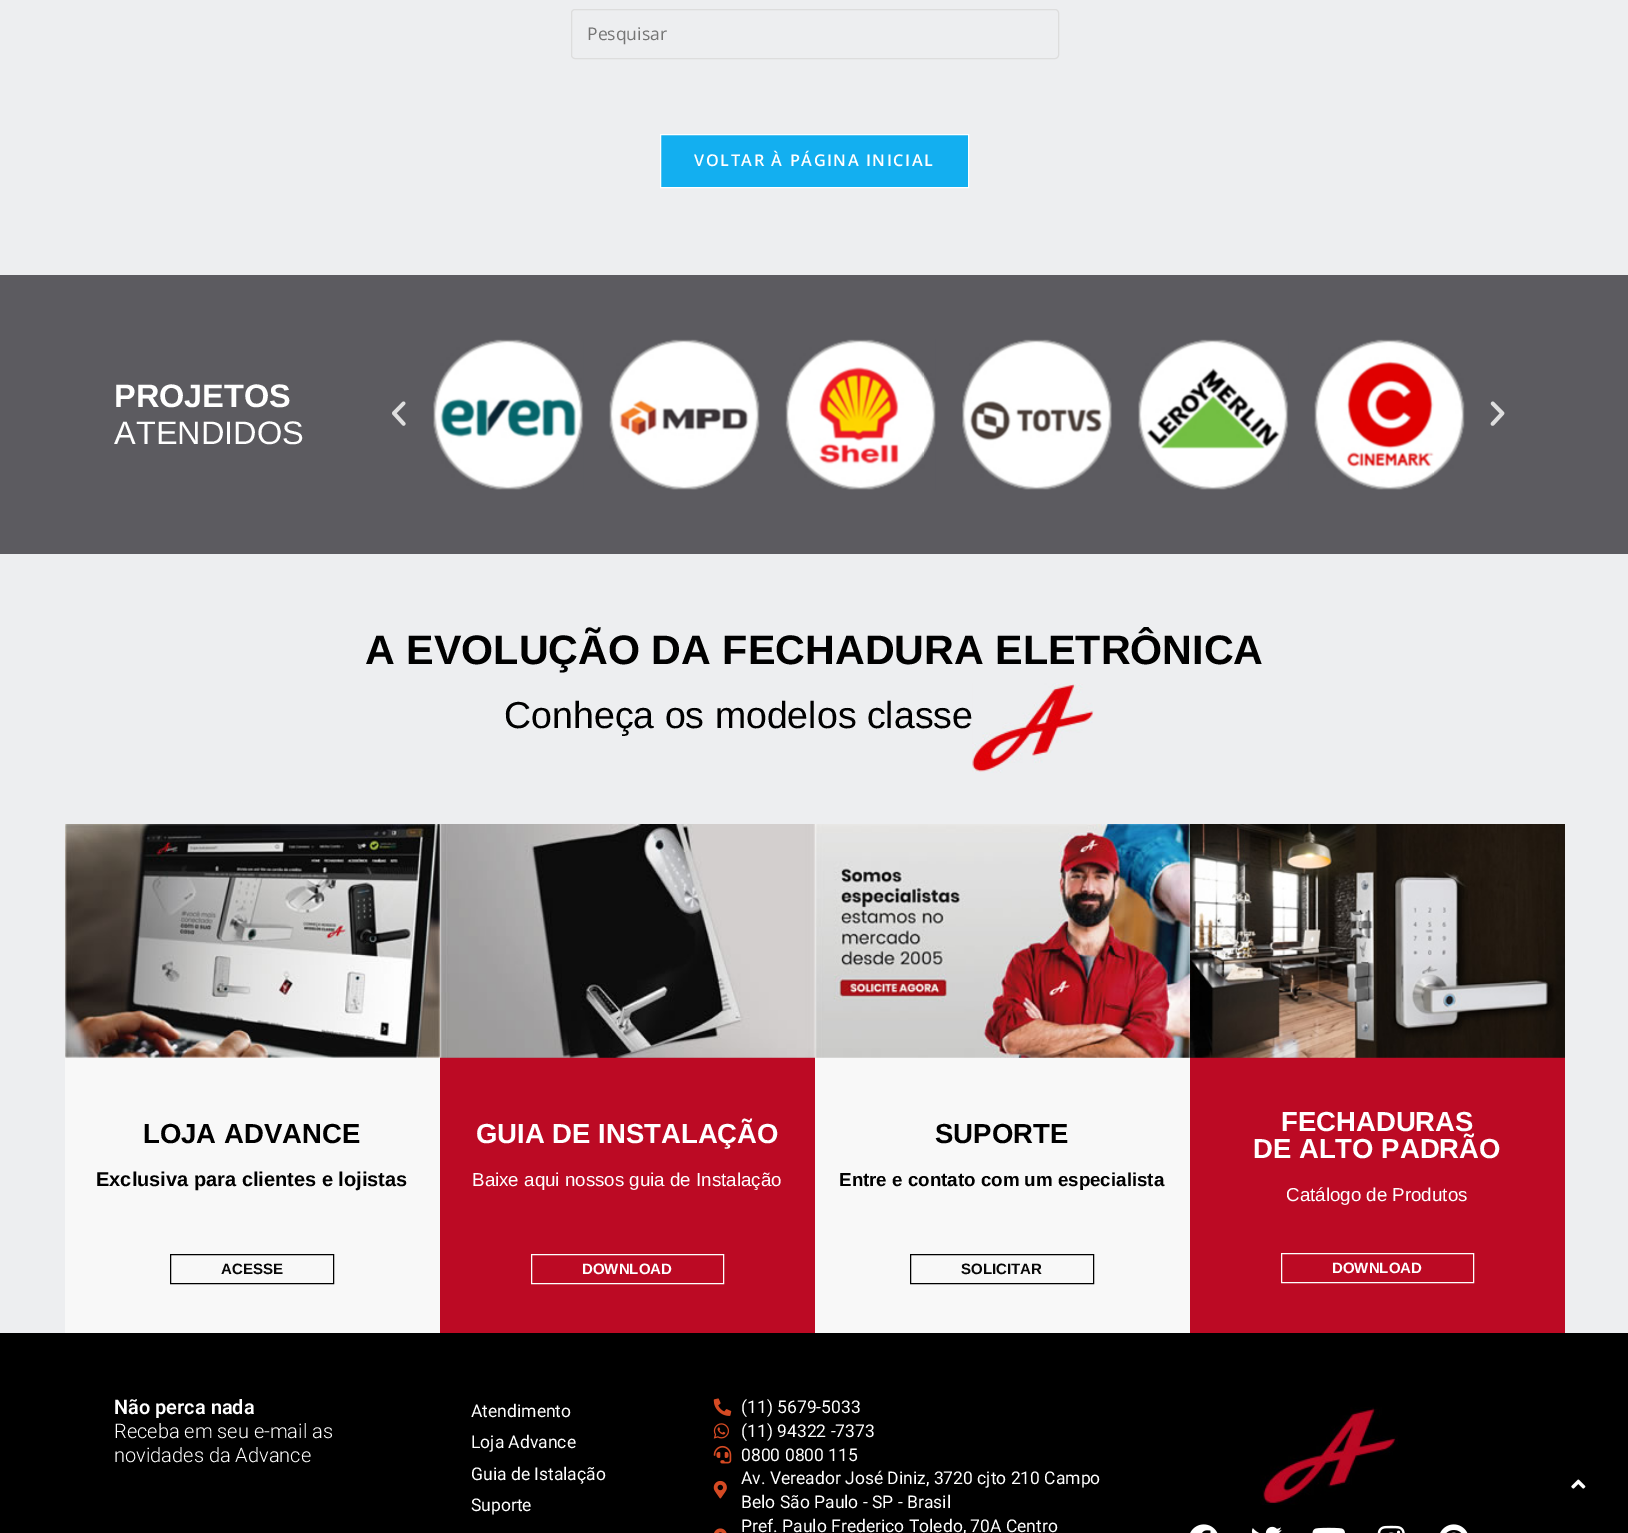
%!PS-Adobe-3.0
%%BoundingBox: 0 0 1628 1533
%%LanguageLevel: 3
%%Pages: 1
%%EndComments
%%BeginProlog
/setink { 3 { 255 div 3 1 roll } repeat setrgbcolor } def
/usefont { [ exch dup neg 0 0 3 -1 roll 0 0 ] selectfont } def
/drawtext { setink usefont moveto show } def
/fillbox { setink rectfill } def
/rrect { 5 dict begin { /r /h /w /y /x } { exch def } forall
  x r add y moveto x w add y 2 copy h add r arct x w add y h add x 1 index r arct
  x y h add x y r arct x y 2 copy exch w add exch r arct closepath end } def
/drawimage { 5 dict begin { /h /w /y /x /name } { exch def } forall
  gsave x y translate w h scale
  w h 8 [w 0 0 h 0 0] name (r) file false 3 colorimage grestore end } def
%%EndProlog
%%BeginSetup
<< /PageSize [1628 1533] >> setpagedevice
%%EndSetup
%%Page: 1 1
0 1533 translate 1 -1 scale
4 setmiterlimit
0 0 1628 1533 237 238 240 fillbox
221 221 221 setink
571.5 9.5 487 49 3.5 rrect stroke
(Pesquisar) 587 40 /OpenSans-Regular 17.5 117 117 117 drawtext
19 175 240 setink
660.5 134.5 moveto 968.5 134.5 lineto 968.5 187.5 lineto 660.5 187.5 lineto closepath gsave fill grestore
255 255 255 setink
stroke
/OpenSans-SemiBold 16.25 usefont
694 166 moveto 1.6 0 (VOLTAR À PÁGINA INICIAL) ashow
0 275 1628 279 92 91 96 fillbox
(PROJETOS) 114 407 /LiberationSans-Bold 32.5 255 255 255 drawtext
(ATENDIDOS) 114 444 /LiberationSans-Regular 32.5 255 255 255 drawtext
(assets/img1.rgb) 392 401 14 25 drawimage
(assets/img2.rgb) 433 339 151 151 drawimage
(assets/img3.rgb) 609 339 151 151 drawimage
(assets/img4.rgb) 785 339 151 151 drawimage
(assets/img5.rgb) 962 339 150 151 drawimage
(assets/img6.rgb) 1138 339 151 151 drawimage
(assets/img7.rgb) 1314 339 151 151 drawimage
(assets/img8.rgb) 1490 401 15 25 drawimage
(A EVOLUÇÃO DA FECHADURA ELETRÔNICA) 365 664 /LiberationSans-Bold 41.25 0 0 0 drawtext
(Conheça os modelos classe) 504 728 /LiberationSans-Regular 37.5 0 0 0 drawtext
(assets/img9.rgb) 972 683 122 90 drawimage
65 1057 375 276 248 248 248 fillbox
(assets/img10.rgb) 65 824 375 234 drawimage
(LOJA ADVANCE) 143 1143 /LiberationSans-Bold 27.5 0 0 0 drawtext
(Exclusiva para clientes e lojistas) 96 1186 /LiberationSans-Bold 20 0 0 0 drawtext
170.5 1254.5 163 29 rectstroke
(ACESSE) 221 1274 /LiberationSans-Bold 15 7 7 7 drawtext
440 1057 375 276 188 10 36 fillbox
(assets/img11.rgb) 440 824 375 234 drawimage
(GUIA DE INSTALAÇÃO) 476 1143 /LiberationSans-Bold 27.5 255 255 255 drawtext
(Baixe aqui nossos guia de Instalação) 472 1186 /LiberationSans-Regular 18.75 255 255 255 drawtext
531.5 1254.5 192 29 rectstroke
(DOWNLOAD) 582 1274 /LiberationSans-Bold 15 255 255 255 drawtext
815 1057 375 276 248 248 248 fillbox
(assets/img12.rgb) 815 824 375 234 drawimage
(SUPORTE) 935 1143 /LiberationSans-Bold 27.5 0 0 0 drawtext
(Entre e contato com um especialista) 839 1186 /LiberationSans-Bold 18.75 0 0 0 drawtext
910.5 1254.5 183 29 rectstroke
(SOLICITAR) 961 1274 /LiberationSans-Bold 15 7 7 7 drawtext
1190 1057 375 276 188 10 36 fillbox
(assets/img13.rgb) 1190 824 375 234 drawimage
(FECHADURAS) 1281 1131 /LiberationSans-Bold 27.5 255 255 255 drawtext
(DE ALTO PADRÃO) 1253 1158 /LiberationSans-Bold 27.5 255 255 255 drawtext
(Catálogo de Produtos) 1286 1201 /LiberationSans-Regular 18.75 255 255 255 drawtext
1281.5 1253.5 192 29 rectstroke
(DOWNLOAD) 1332 1273 /LiberationSans-Bold 15 255 255 255 drawtext
0 1333 1628 200 0 0 0 fillbox
(Não perca nada) 114 1414 /Roboto-SemiBold 20 255 255 255 drawtext
(Receba em seu e-mail as) 114 1438 /Roboto-Light 20 255 255 255 drawtext
(novidades da Advance) 114 1462 /Roboto-Light 20 255 255 255 drawtext
(Atendimento) 471 1417 /Roboto-Regular 17.5 255 255 255 drawtext
(Loja Advance) 471 1448 /Roboto-Regular 17.5 255 255 255 drawtext
(Guia de Istalação) 471 1480 /Roboto-Regular 17.5 255 255 255 drawtext
(Suporte) 471 1511 /Roboto-Regular 17.5 255 255 255 drawtext
(assets/img14.rgb) 713 1398 19 18 drawimage
(\(11\) 5679-5033) 741 1413 /Roboto-Regular 17.5 255 255 255 drawtext
(assets/img15.rgb) 713 1423 17 16 drawimage
(\(11\) 94322 -7373) 741 1437 /Roboto-Regular 17.5 255 255 255 drawtext
(assets/img16.rgb) 713 1445 19 19 drawimage
(0800 0800 115) 741 1461 /Roboto-Regular 17.5 255 255 255 drawtext
(assets/img17.rgb) 713 1480 14 19 drawimage
(Av. Vereador José Diniz, 3720 cjto 210 Campo) 741 1484 /Roboto-Regular 17.5 255 255 255 drawtext
(Belo São Paulo - SP - Brasil) 741 1508 /Roboto-Regular 17.5 255 255 255 drawtext
(assets/img18.rgb) 714 1528 13 5 drawimage
(Pref. Paulo Frederico Toledo, 70A Centro) 741 1532 /Roboto-Regular 17.5 255 255 255 drawtext
(assets/img19.rgb) 1260 1407 138 98 drawimage
(assets/img20.rgb) 1190 1524 28 9 drawimage
(assets/img21.rgb) 1251 1526 31 7 drawimage
(assets/img22.rgb) 1312 1527 33 6 drawimage
(assets/img23.rgb) 1377 1525 28 8 drawimage
(assets/img24.rgb) 1440 1524 28 9 drawimage
(assets/img25.rgb) 1571 1479 15 10 drawimage
showpage
%%EOF
